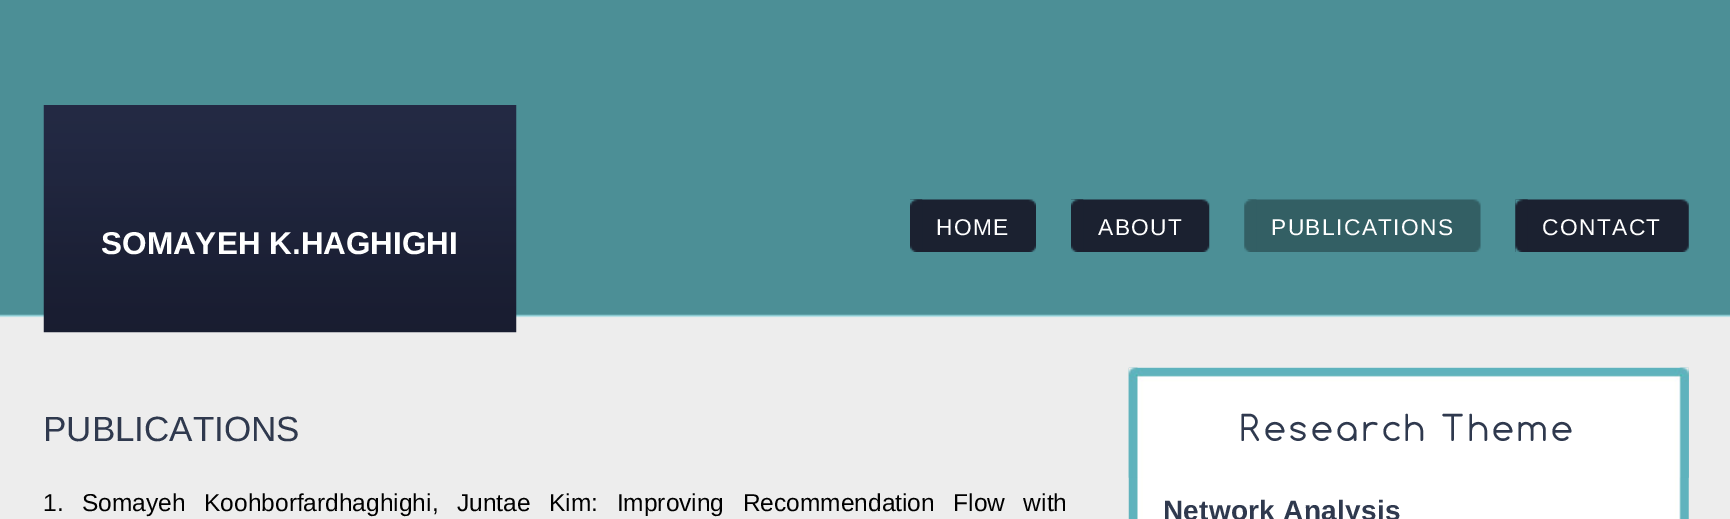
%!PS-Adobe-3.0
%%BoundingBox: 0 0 1730 519
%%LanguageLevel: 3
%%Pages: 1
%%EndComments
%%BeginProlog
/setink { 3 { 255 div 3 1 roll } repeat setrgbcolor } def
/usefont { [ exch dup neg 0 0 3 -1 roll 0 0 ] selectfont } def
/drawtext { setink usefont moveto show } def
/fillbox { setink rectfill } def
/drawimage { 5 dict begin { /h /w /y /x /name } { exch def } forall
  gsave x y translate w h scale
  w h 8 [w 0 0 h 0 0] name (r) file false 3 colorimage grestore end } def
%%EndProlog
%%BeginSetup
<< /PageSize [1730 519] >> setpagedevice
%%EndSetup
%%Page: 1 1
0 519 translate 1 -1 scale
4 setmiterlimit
0 0 1730 519 237 237 237 fillbox
(assets/img1.rgb) 0 0 1730 318 drawimage
(assets/img2.rgb) 910 199 126 53 drawimage
(assets/img3.rgb) 910 199 13 53 drawimage
/LiberationSans-Regular 22.75 usefont
255 255 255 setink
936 235 moveto 1.4 0 (HOME) ashow
(assets/img4.rgb) 1071 199 139 53 drawimage
(assets/img3.rgb) 1071 199 13 53 drawimage
1098 235 moveto 1.4 0 (ABOUT) ashow
(assets/img5.rgb) 1247 199 234 53 drawimage
(assets/img6.rgb) 1244 199 13 53 drawimage
1271 235 moveto 1.4 0 (PUBLICATIONS) ashow
(assets/img7.rgb) 1515 199 174 53 drawimage
(assets/img8.rgb) 1515 199 13 53 drawimage
1542 235 moveto 1.4 0 (CONTACT) ashow
(assets/img9.rgb) 43 105 474 228 drawimage
(SOMAYEH K.HAGHIGHI) 101 254 /Arimo-Bold 31.5 255 255 255 drawtext
(PUBLICATIONS) 43 441 /LiberationSans-Regular 35 47 57 78 drawtext
/LiberationSans-Regular 24.5 usefont
0 0 0 setink
43 511 moveto 11.75 0 32 (1. Somayeh Koohborfardhaghighi, Juntae Kim: Improving Recommendation Flow with) widthshow
(assets/img10.rgb) 1128 367 561 152 drawimage
(assets/img11.rgb) 1128 367 561 111 drawimage
/Comfortaa-Regular 35 usefont
47 57 78 setink
1240 441 moveto 3.5 0 (Research Theme) ashow
/LiberationSans-Bold 28 usefont
1163 520 moveto 0.25 0 (Network Analysis) ashow
showpage
%%EOF
